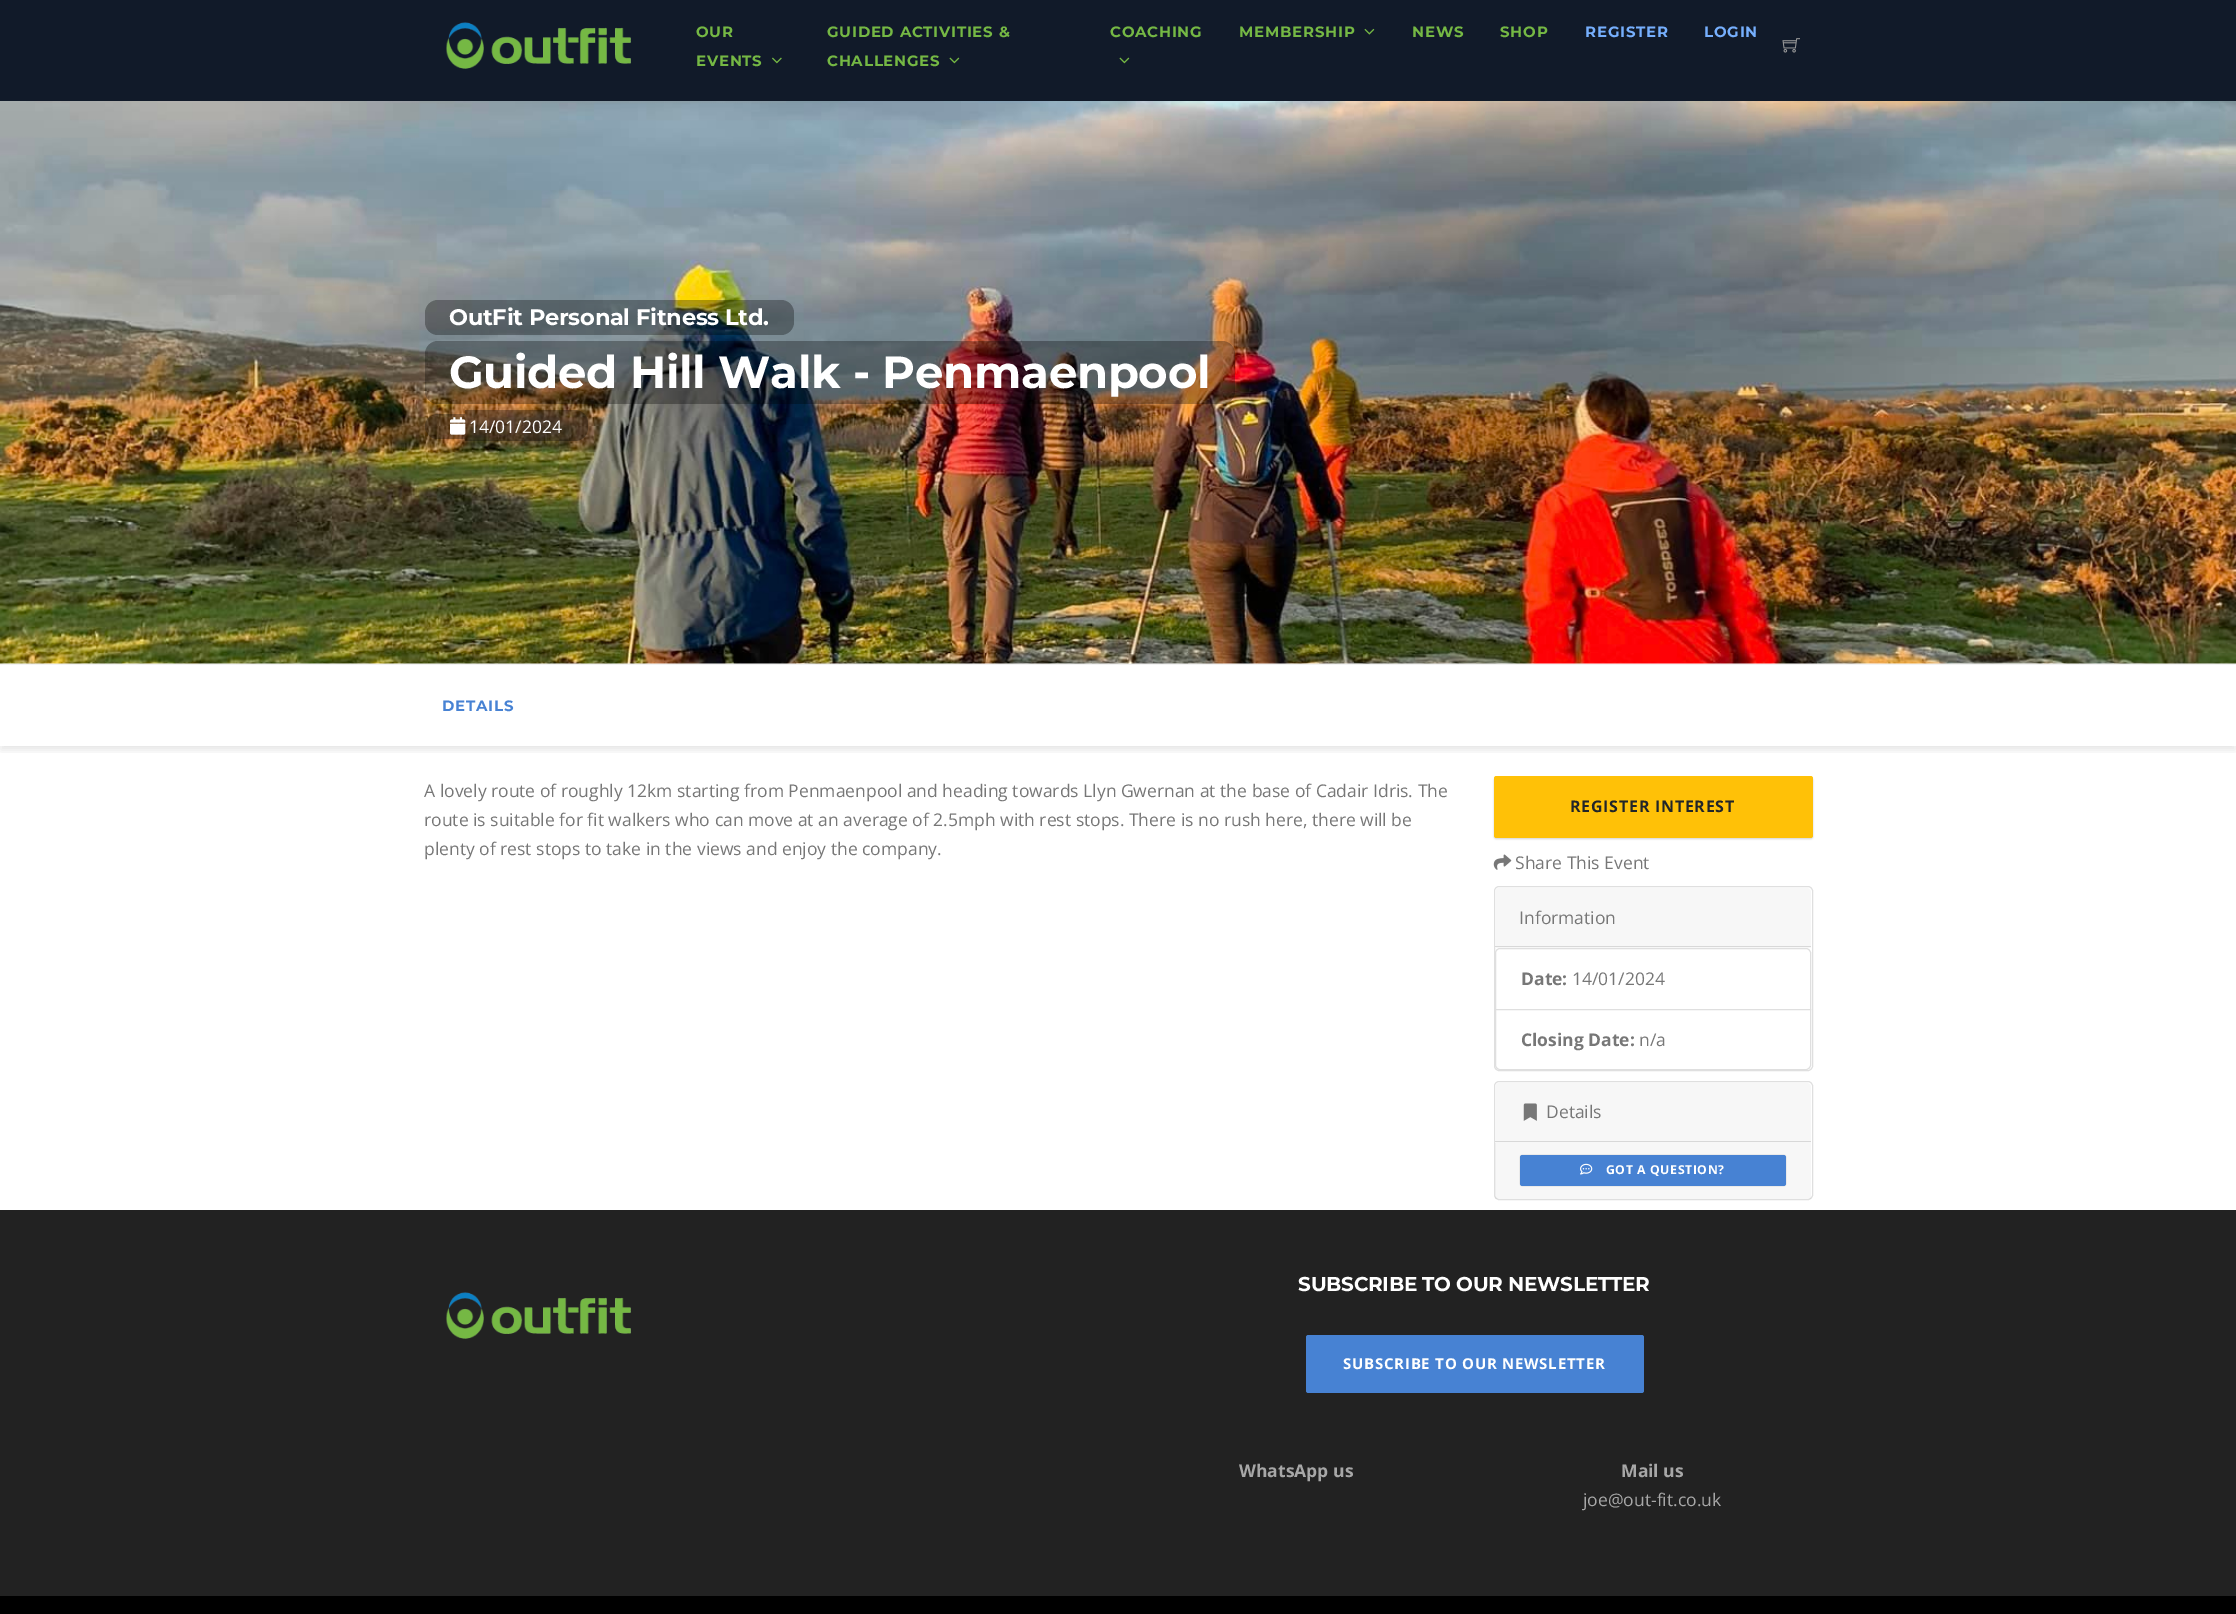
%!PS-Adobe-3.0
%%BoundingBox: 0 0 2236 1614
%%LanguageLevel: 3
%%Pages: 1
%%EndComments
%%BeginProlog
/setink { 3 { 255 div 3 1 roll } repeat setrgbcolor } def
/usefont { [ exch dup neg 0 0 3 -1 roll 0 0 ] selectfont } def
/drawtext { setink usefont moveto show } def
/fillbox { setink rectfill } def
/setalpha { dup .setfillconstantalpha .setstrokeconstantalpha } def
/rrect { 5 dict begin { /r /h /w /y /x } { exch def } forall
  x r add y moveto x w add y 2 copy h add r arct x w add y h add x 1 index r arct
  x y h add x y r arct x y 2 copy exch w add exch r arct closepath end } def
/softshadow { 12 dict begin { /a /b /q /h /w /y /x } { exch def } forall gsave /was 0 def
  9 -2 -9 { dup b mul 4 div /e exch def 1 sub .425 mul 2.718 exch exp 1 add a .99 .min exch div /now exch def
    1 1 now sub 1 was sub div sub setalpha /was now def
    w h .min e 2 mul add 0 gt { x e sub y e sub w e 2 mul add h e 2 mul add
      q e add b .6 mul add w h .min 2 div e add .min 0 .max rrect fill } if } for grestore end } def
/drawimage { 5 dict begin { /h /w /y /x /name } { exch def } forall
  gsave x y translate w h scale
  w h 8 [w 0 0 h 0 0] name (r) file false 3 colorimage grestore end } def
%%EndProlog
%%BeginSetup
<< /PageSize [2236 1614] /PageUsesTransparency true >> setpagedevice
%%EndSetup
%%Page: 1 1
0 .pushpdf14devicefilter
0 1614 translate 1 -1 scale
4 setmiterlimit
0 0 2236 1614 255 255 255 fillbox
0 0 2236 101 17 26 41 fillbox
(assets/img1.rgb) 446 22 185 47 drawimage
/Montserrat-Bold 15 usefont
117 184 68 setink
696 37 moveto 0.75 0 (OUR) ashow
696 66 moveto 0.75 0 (EVENTS) ashow
(assets/img2.rgb) 772 57 10 7 drawimage
827 37 moveto 0.75 0 (GUIDED ACTIVITIES &) ashow
827 66 moveto 0.75 0 (CHALLENGES) ashow
(assets/img3.rgb) 949 57 11 7 drawimage
1110 37 moveto 0.75 0 (COACHING) ashow
(assets/img3.rgb) 1119 57 11 7 drawimage
1239 37 moveto 0.75 0 (MEMBERSHIP) ashow
(assets/img4.rgb) 1364 28 11 7 drawimage
1412 37 moveto 0.75 0 (NEWS) ashow
1500 37 moveto 0.75 0 (SHOP) ashow
118 175 253 setink
1585 37 moveto 0.75 0 (REGISTER) ashow
1704 37 moveto 0.75 0 (LOGIN) ashow
(assets/img5.rgb) 1782 38 18 15 drawimage
(assets/img6.rgb) 0 101 2236 563 drawimage
0.31 setalpha
0 0 0 setink
425 300 369 35 13 rrect fill
/Montserrat-Bold 22.5 usefont
1 setalpha
255 255 255 setink
449 325 moveto -0.25 0 (OutFit Personal Fitness Ltd.) ashow
0.31 setalpha
0 0 0 setink
425 341 810 63 13 rrect fill
/Montserrat-Bold 45 usefont
1 setalpha
255 255 255 setink
449 388 moveto -0.25 0 (Guided Hill Walk - Penmaenpool) ashow
0.31 setalpha
0 0 0 setink
437.5 414 moveto 465 414 lineto 465 439 lineto 437.5 439 lineto 430.5 439 425 433.5 425 426.5 curveto 425 419.5 430.5 414 437.5 414 curveto closepath fill
465 410 moveto 575 410 lineto 582 410 588 416 588 423 curveto 588 428 lineto 588 435 582 441 575 441 curveto 465 441 lineto closepath fill
1 setalpha
(assets/img7.rgb) 450 417 16 18 drawimage
(14/01/2024) 469 433 /OpenSans-Regular 17.5 255 255 255 drawtext
gsave
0 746 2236 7 rectclip
0 0 0 setink
1 670 2234 80 0 4 0.1 softshadow
grestore
0 664 2236 1 243 243 243 fillbox
/Montserrat-Bold 15 usefont
71 130 211 setink
442 711 moveto 0.75 0 (DETAILS) ashow
(A lovely route of roughly 12km starting from Penmaenpool and heading towards Llyn Gwernan at the base of Cadair Idris. The) 424 797 /OpenSans-Regular 17.5 119 119 119 drawtext
(route is suitable for fit walkers who can move at an average of 2.5mph with rest stops. There is no rush here, there will be) 424 826 /OpenSans-Regular 17.5 119 119 119 drawtext
(plenty of rest stops to take in the views and enjoy the company.) 424 855 /OpenSans-Regular 17.5 119 119 119 drawtext
0 0 0 setink
1494 778 319 61 2.5 1 0.18 softshadow
255 193 7 setink
1494 776 319 62 2.5 rrect fill
/OpenSans-Bold 16 usefont
33 37 41 setink
1570 812 moveto 0.75 0 (REGISTER INTEREST) ashow
(assets/img8.rgb) 1493 854 19 16 drawimage
(Share This Event) 1515 869 /OpenSans-Regular 17.5 119 119 119 drawtext
223 223 223 setink
1494.5 886.5 318 184 4.5 rrect stroke
247 247 247 setink
1499 888 moveto 1807 888 lineto 1809 888 1811 890 1811 892 curveto 1811 948 lineto 1495 948 lineto 1495 892 lineto 1495 890 1497 888 1499 888 curveto closepath fill
1495 946 316 1 216 216 216 fillbox
(Information) 1519 924 /OpenSans-Regular 17.5 119 119 119 drawtext
223 223 223 setink
1500 948.5 moveto 1806 948.5 lineto 1808.5 948.5 1810.5 950.5 1810.5 953 curveto 1810.5 1009.5 lineto 1495.5 1009.5 lineto 1495.5 953 lineto 1495.5 950.5 1497.5 948.5 1500 948.5 curveto closepath stroke
(Date:) 1521 985 /OpenSans-Bold 17.5 119 119 119 drawtext
(14/01/2024) 1572 985 /OpenSans-Regular 17.5 119 119 119 drawtext
255 255 255 setink
1495.5 1009.5 moveto 1810.5 1009.5 lineto 1810.5 1065 lineto 1810.5 1067.5 1808.5 1069.5 1806 1069.5 curveto 1500 1069.5 lineto 1497.5 1069.5 1495.5 1067.5 1495.5 1065 curveto closepath gsave fill grestore
223 223 223 setink
stroke
(Closing Date:) 1521 1046 /OpenSans-Bold 17.5 119 119 119 drawtext
(n/a) 1639 1046 /OpenSans-Regular 17.5 119 119 119 drawtext
223 223 223 setink
1494.5 1081.5 318 118 4.5 rrect stroke
247 247 247 setink
1499 1083 moveto 1807 1083 lineto 1809 1083 1811 1085 1811 1087 curveto 1811 1143 lineto 1495 1143 lineto 1495 1087 lineto 1495 1085 1497 1083 1499 1083 curveto closepath fill
1495 1141 316 1 216 216 216 fillbox
(assets/img9.rgb) 1523 1103 14 18 drawimage
(Details) 1546 1118 /OpenSans-Regular 17.5 119 119 119 drawtext
0.03 setalpha
1495 1143 316 56 0 0 0 fillbox
1 setalpha
1520 1155 266 31 2.5 0.5 0.18 softshadow
71 130 211 setink
1520 1155 266 31 2.5 rrect fill
(assets/img10.rgb) 1580 1163 13 12 drawimage
/OpenSans-Bold 12.25 usefont
255 255 255 setink
1606 1174 moveto 0.6 0 (GOT A QUESTION?) ashow
0 1210 2236 386 34 34 34 fillbox
(assets/img11.rgb) 446 1292 185 47 drawimage
/Montserrat-Bold 20 usefont
255 255 255 setink
1298 1291 moveto -0.25 0 (SUBSCRIBE TO OUR NEWSLETTER) ashow
71 130 211 setink
1306 1335 338 58 2.5 rrect fill
/OpenSans-Bold 15 usefont
255 255 255 setink
1343 1369 moveto 0.75 0 (SUBSCRIBE TO OUR NEWSLETTER) ashow
(WhatsApp us) 1239 1477 /OpenSans-Bold 17.5 167 167 167 drawtext
(Mail us) 1621 1477 /OpenSans-Bold 17.5 167 167 167 drawtext
(joe@out-fit.co.uk) 1583 1506 /OpenSans-Regular 17.5 167 167 167 drawtext
0 1596 2236 18 0 0 0 fillbox
.poppdf14devicefilter showpage
%%EOF
